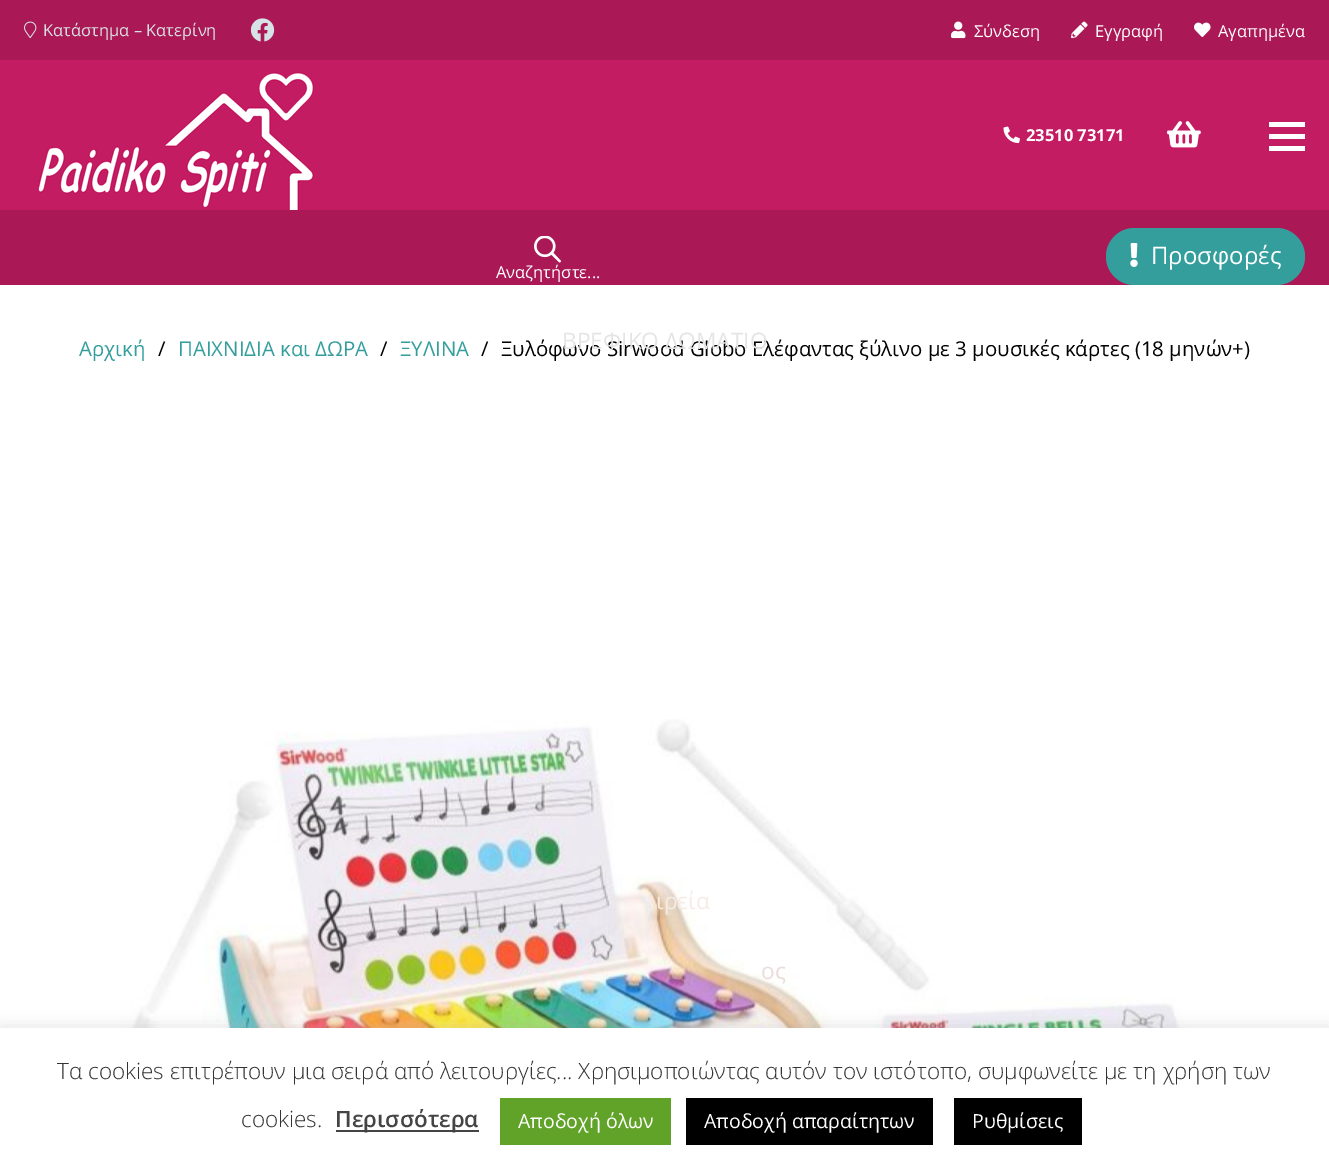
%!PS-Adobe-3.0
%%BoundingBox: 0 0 1329 1170
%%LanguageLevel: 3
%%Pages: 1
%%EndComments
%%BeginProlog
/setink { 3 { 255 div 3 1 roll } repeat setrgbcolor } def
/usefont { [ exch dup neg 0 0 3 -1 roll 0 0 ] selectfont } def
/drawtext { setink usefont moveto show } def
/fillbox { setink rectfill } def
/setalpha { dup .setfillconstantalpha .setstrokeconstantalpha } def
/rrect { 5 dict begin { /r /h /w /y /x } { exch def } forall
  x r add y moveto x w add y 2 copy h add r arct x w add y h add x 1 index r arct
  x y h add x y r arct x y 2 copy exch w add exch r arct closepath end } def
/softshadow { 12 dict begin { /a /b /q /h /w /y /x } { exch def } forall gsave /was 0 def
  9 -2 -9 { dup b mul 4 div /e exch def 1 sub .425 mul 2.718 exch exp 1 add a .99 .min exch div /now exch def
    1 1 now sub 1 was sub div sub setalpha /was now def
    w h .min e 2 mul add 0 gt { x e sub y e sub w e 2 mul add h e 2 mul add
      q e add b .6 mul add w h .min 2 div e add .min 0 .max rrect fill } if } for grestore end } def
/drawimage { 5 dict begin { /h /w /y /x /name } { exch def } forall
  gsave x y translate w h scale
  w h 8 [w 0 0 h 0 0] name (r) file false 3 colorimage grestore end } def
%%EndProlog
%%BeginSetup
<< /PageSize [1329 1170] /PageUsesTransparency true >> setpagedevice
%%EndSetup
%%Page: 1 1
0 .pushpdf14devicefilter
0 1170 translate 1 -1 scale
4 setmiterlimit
0 0 1329 1170 255 255 255 fillbox
0 60 1329 150 195 28 98 fillbox
0 0 1329 60 170 24 85 fillbox
(assets/img1.rgb) 24 21 13 17 drawimage
(Κατάστημα – Κατερίνη) 43 36 /OpenSans-Regular 16.5 215 226 230 drawtext
(assets/img2.rgb) 251 18 24 24 drawimage
(assets/img3.rgb) 951 21 15 18 drawimage
(Σύνδεση) 974 37 /OpenSans-Regular 16.5 255 255 255 drawtext
(assets/img4.rgb) 1071 21 17 18 drawimage
(Εγγραφή) 1095 37 /OpenSans-Regular 16.5 255 255 255 drawtext
(assets/img5.rgb) 1194 22 17 15 drawimage
(Αγαπημένα) 1218 37 /OpenSans-Regular 16.5 255 255 255 drawtext
(assets/img6.rgb) 37 72 277 138 drawimage
(assets/img7.rgb) 1003 126 17 18 drawimage
(23510 73171) 1026 141 /OpenSans-Bold 16.5 255 255 255 drawtext
(assets/img8.rgb) 1167 121 34 27 drawimage
1269 134 36 5 255 255 255 fillbox
1269 122 36 5 255 255 255 fillbox
1269 146 36 5 255 255 255 fillbox
(Ξυλόφωνο Sirwood Globo Ελέφαντας ξύλινο με 3 μουσικές κάρτες \(18 μηνών+\)) 501 356 /OpenSans-Regular 20.4 0 0 0 drawtext
(ΒΡΕΦΙΚΟ ΔΩΜΑΤΙΟ) 562 349 /OpenSans-Regular 22.75 228 228 228 drawtext
(assets/img11.rgb) 102 719 1114 309 drawimage
(ιρεία) 656 909 /OpenSans-Regular 22.75 245 236 229 drawtext
(ος) 761 979 /OpenSans-Regular 22.75 234 220 218 drawtext
0 210 1329 75 170 24 85 fillbox
52 158 157 setink
1106 228 199 57 28.5 rrect fill
(assets/img9.rgb) 1130 243 8 24 drawimage
(Προσφορές) 1151 264 /OpenSans-Regular 24 255 255 255 drawtext
(assets/img10.rgb) 534 236 27 27 drawimage
(Αναζητήστε...) 496 278 /OpenSans-Regular 16.5 255 255 255 drawtext
(Αρχική) 79 356 /OpenSans-Regular 20.4 52 158 157 drawtext
(/) 158 356 /OpenSans-Regular 20.4 0 0 0 drawtext
(ΠΑΙΧΝΙΔΙΑ και ΔΩΡΑ) 178 356 /OpenSans-Regular 20.4 52 158 157 drawtext
(/) 380 356 /OpenSans-Regular 20.4 0 0 0 drawtext
(ΞΥΛΙΝΑ) 400 356 /OpenSans-Regular 20.4 52 158 157 drawtext
(/) 481 356 /OpenSans-Regular 20.4 0 0 0 drawtext
172 171 171 setink
0 1026 1329 143 0 7.5 0.3 softshadow
0 1028 1329 142 255 255 255 fillbox
(Τα cookies επιτρέπουν μια σειρά από λειτουργίες... Χρησιμοποιώντας αυτόν τον ιστότοπο, συμφωνείτε με τη χρήση των) 57 1079 /OpenSans-Light 22.5 51 51 51 drawtext
(cookies.) 241 1127 /OpenSans-Light 22.5 51 51 51 drawtext
336 1130 143 2 68 68 68 fillbox
(Περισσότερα) 335 1127 /OpenSans-SemiBold 22.5 68 68 68 drawtext
500 1098 171 47 97 162 41 fillbox
(Αποδοχή όλων) 518 1128 /OpenSans-Regular 19.5 255 255 255 drawtext
686 1098 247 47 0 0 0 fillbox
(Αποδοχή απαραίτητων) 704 1128 /OpenSans-Regular 19.5 255 255 255 drawtext
954 1098 128 47 0 0 0 fillbox
(Ρυθμίσεις) 972 1128 /OpenSans-Regular 19.5 255 255 255 drawtext
.poppdf14devicefilter showpage
%%EOF
